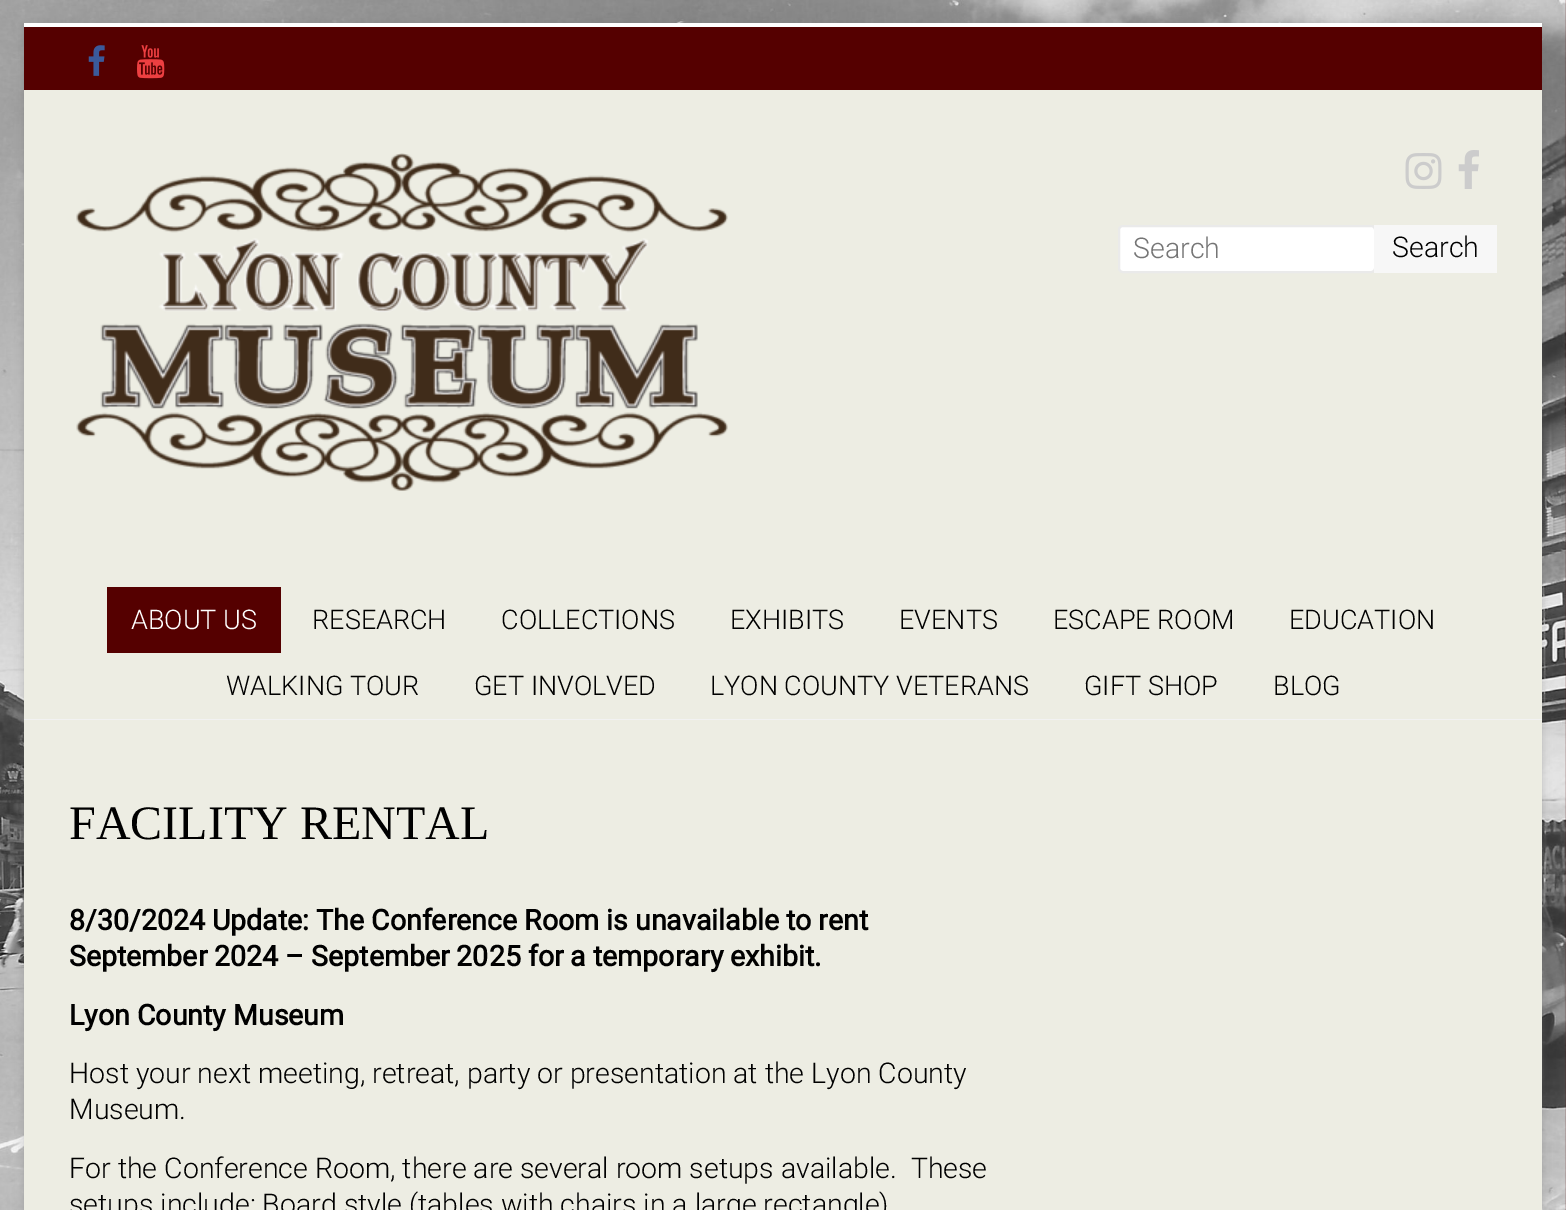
%!PS-Adobe-3.0
%%BoundingBox: 0 0 1566 1210
%%LanguageLevel: 3
%%Pages: 1
%%EndComments
%%BeginProlog
/setink { 3 { 255 div 3 1 roll } repeat setrgbcolor } def
/usefont { [ exch dup neg 0 0 3 -1 roll 0 0 ] selectfont } def
/drawtext { setink usefont moveto show } def
/fillbox { setink rectfill } def
/setalpha { dup .setfillconstantalpha .setstrokeconstantalpha } def
/rrect { 5 dict begin { /r /h /w /y /x } { exch def } forall
  x r add y moveto x w add y 2 copy h add r arct x w add y h add x 1 index r arct
  x y h add x y r arct x y 2 copy exch w add exch r arct closepath end } def
/softshadow { 12 dict begin { /a /b /q /h /w /y /x } { exch def } forall gsave /was 0 def
  9 -2 -9 { dup b mul 4 div /e exch def 1 sub .425 mul 2.718 exch exp 1 add a .99 .min exch div /now exch def
    1 1 now sub 1 was sub div sub setalpha /was now def
    w h .min e 2 mul add 0 gt { x e sub y e sub w e 2 mul add h e 2 mul add
      q e add b .6 mul add w h .min 2 div e add .min 0 .max rrect fill } if } for grestore end } def
/drawimage { 5 dict begin { /h /w /y /x /name } { exch def } forall
  gsave x y translate w h scale
  w h 8 [w 0 0 h 0 0] name (r) file false 3 colorimage grestore end } def
%%EndProlog
%%BeginSetup
<< /PageSize [1566 1210] /PageUsesTransparency true >> setpagedevice
%%EndSetup
%%Page: 1 1
0 .pushpdf14devicefilter
0 1210 translate 1 -1 scale
4 setmiterlimit
0 0 1566 1210 255 255 255 fillbox
(assets/img1.rgb) 0 0 1566 1210 drawimage
100 100 100 setink
24 26 1518 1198 0 4.5 0.3 softshadow
24 23 1518 4 255 255 255 fillbox
24 27 1518 63 85 0 0 fillbox
(assets/img2.rgb) 88 45 17 31 drawimage
(assets/img3.rgb) 137 45 28 34 drawimage
24 90 1518 629 237 237 227 fillbox
24 719 1518 1 242 242 242 fillbox
(assets/img4.rgb) 76 153 652 338 drawimage
(assets/img5.rgb) 1405 153 37 36 drawimage
(assets/img6.rgb) 1458 150 21 39 drawimage
255 255 255 setink
1119 226 256 46 4 rrect gsave fill grestore
234 234 234 setink
2 setlinewidth
stroke
(Search) 1133 258 /Roboto-Light 28.5 117 117 117 drawtext
1374 225 123 48 247 247 247 fillbox
(Search) 1392 257 /Roboto-Light 28.5 0 0 0 drawtext
107 587 174 66 85 0 0 fillbox
(ABOUT US) 131 629 /Roboto-Light 27 255 255 255 drawtext
(RESEARCH) 312 629 /Roboto-Light 27 0 0 0 drawtext
(COLLECTIONS) 501 629 /Roboto-Light 27 0 0 0 drawtext
(EXHIBITS) 730 629 /Roboto-Light 27 0 0 0 drawtext
(EVENTS) 899 629 /Roboto-Light 27 0 0 0 drawtext
(ESCAPE ROOM) 1053 629 /Roboto-Light 27 0 0 0 drawtext
(EDUCATION) 1289 629 /Roboto-Light 27 0 0 0 drawtext
(WALKING TOUR) 226 695 /Roboto-Light 27 0 0 0 drawtext
(GET INVOLVED) 474 695 /Roboto-Light 27 0 0 0 drawtext
(LYON COUNTY VETERANS) 710 695 /Roboto-Light 27 0 0 0 drawtext
(GIFT SHOP) 1084 695 /Roboto-Light 27 0 0 0 drawtext
(BLOG) 1273 695 /Roboto-Light 27 0 0 0 drawtext
24 720 1518 490 237 237 227 fillbox
(FACILITY RENTAL) 69 839 /LiberationSerif-Regular 48 0 0 0 drawtext
(8/30/2024 Update: The Conference Room is unavailable to rent) 69 930 /Roboto-Bold 28.5 0 0 0 drawtext
(September 2024 – September 2025 for a temporary exhibit.) 69 966 /Roboto-Bold 28.5 0 0 0 drawtext
(Lyon County Museum) 69 1025 /Roboto-Bold 28.5 0 0 0 drawtext
(Host your next meeting, retreat, party or presentation at the Lyon County) 69 1083 /Roboto-Light 28.5 0 0 0 drawtext
(Museum.) 69 1119 /Roboto-Light 28.5 0 0 0 drawtext
(For the Conference Room, there are several room setups available.  These) 69 1178 /Roboto-Light 28.5 0 0 0 drawtext
(setups include: Board style \(tables with chairs in a large rectangle\)) 69 1214 /Roboto-Light 28.5 0 0 0 drawtext
.poppdf14devicefilter showpage
%%EOF
